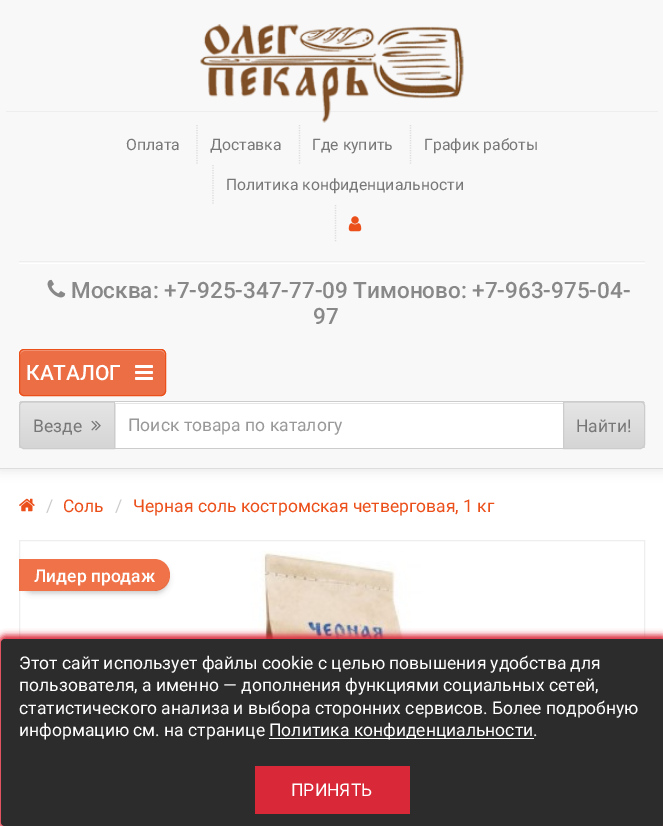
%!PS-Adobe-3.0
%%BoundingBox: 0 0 663 826
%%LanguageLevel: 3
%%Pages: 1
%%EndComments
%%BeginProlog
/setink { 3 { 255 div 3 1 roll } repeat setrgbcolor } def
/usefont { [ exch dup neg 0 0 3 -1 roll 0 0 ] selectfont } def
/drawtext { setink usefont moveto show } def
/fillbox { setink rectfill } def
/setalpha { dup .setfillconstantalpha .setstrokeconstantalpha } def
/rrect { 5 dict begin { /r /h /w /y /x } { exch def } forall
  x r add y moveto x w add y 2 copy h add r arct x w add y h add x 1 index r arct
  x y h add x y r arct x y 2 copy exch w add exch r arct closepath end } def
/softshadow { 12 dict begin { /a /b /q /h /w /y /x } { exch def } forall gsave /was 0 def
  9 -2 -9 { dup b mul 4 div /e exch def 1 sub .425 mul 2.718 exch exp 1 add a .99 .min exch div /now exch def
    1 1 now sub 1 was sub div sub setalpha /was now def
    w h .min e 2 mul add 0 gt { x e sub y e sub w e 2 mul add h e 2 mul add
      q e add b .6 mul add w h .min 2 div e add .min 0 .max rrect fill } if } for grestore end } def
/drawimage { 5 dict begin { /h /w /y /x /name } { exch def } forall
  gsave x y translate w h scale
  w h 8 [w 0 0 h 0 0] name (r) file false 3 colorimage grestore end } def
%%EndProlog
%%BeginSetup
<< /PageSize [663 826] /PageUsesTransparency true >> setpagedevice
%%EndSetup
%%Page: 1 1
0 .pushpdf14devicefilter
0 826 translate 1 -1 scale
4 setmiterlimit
0 0 663 826 255 255 255 fillbox
230 230 230 setink
0 1 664 469 0 6 1 softshadow
0 0 663 468 248 248 248 fillbox
0 468 663 1 221 221 221 fillbox
6 111 652 1 238 238 238 fillbox
(assets/img1.rgb) 200 24 264 99 drawimage
(Оплата) 126 150 /Roboto-Regular 15.75 119 119 119 drawtext
221 221 221 setink
1.2 setlinewidth
[1.25 1.25] 0 setdash
197 125 moveto 197 165 lineto stroke
(Доставка) 210 150 /Roboto-Regular 15.75 119 119 119 drawtext
221 221 221 setink
299.5 125 moveto 299.5 165 lineto stroke
(Где купить) 312 150 /Roboto-Regular 15.75 119 119 119 drawtext
221 221 221 setink
410.5 125 moveto 410.5 165 lineto stroke
(График работы) 424 150 /Roboto-Regular 15.75 119 119 119 drawtext
221 221 221 setink
213 165 moveto 213 205 lineto stroke
(Политика конфиденциальности) 226 190 /Roboto-Regular 15.75 119 119 119 drawtext
221 221 221 setink
335.5 205 moveto 335.5 242.5 lineto stroke
(assets/img2.rgb) 348 216 14 16 drawimage
19 261 626 1 238 238 238 fillbox
19 263 626 1 255 255 255 fillbox
(assets/img3.rgb) 47 279 19 19 drawimage
(Москва: +7-925-347-77-09 Тимоново: +7-963-975-04-) 71 298 /Roboto-Medium 22.5 136 136 136 drawtext
(97) 313 324 /Roboto-Medium 22.5 136 136 136 drawtext
235 110 68 setink
19 349 147 47 5 rrect fill
243 168 143 setink
24 351 moveto 161 351 lineto 163 351 165 353 165 355 curveto 165 354 lineto 165 352 163 350 161 350 curveto 24 350 lineto 22 350 20 352 20 354 curveto 20 355 lineto 20 353 22 351 24 351 curveto closepath fill
235 79 26 setink
1 setlinewidth
[] 0 setdash
19.5 349.5 146 46 4.5 rrect stroke
(КАТАЛОГ) 26 380 /Roboto-Medium 21 255 255 255 drawtext
(assets/img4.rgb) 135 365 18 15 drawimage
gsave
24 401 moveto 115 401 lineto 115 449 lineto 24 449 lineto 21 449 19 447 19 444 curveto 19 406 lineto 19 403 21 401 24 401 curveto closepath clip newpath
gsave 19 401 moveto 115 401 lineto 115 403 lineto 19 403 lineto closepath clip newpath
<< /ShadingType 2 /ColorSpace /DeviceRGB /Coords [67 358 67 403] /Extend [true true] /Function << /FunctionType 3 /Domain [0 1] /Functions [<< /FunctionType 2 /Domain [0 1] /C0 [0.898 0.898 0.898] /C1 [0.898 0.898 0.898] /N 1 >> << /FunctionType 2 /Domain [0 1] /C0 [0.898 0.898 0.898] /C1 [0.835 0.835 0.835] /N 1 >>] /Bounds [0.01] /Encode [0 1 0 1] >> >> shfill grestore
gsave 19 403 moveto 114 403 lineto 114 448 lineto 19 448 lineto closepath clip newpath
<< /ShadingType 2 /ColorSpace /DeviceRGB /Coords [67 403 67 448] /Extend [true true] /Function << /FunctionType 3 /Domain [0 1] /Functions [<< /FunctionType 2 /Domain [0 1] /C0 [0.898 0.898 0.898] /C1 [0.898 0.898 0.898] /N 1 >> << /FunctionType 2 /Domain [0 1] /C0 [0.898 0.898 0.898] /C1 [0.835 0.835 0.835] /N 1 >>] /Bounds [0.01] /Encode [0 1 0 1] >> >> shfill grestore
grestore
204 204 204 setink
24 401.5 moveto 114.5 401.5 lineto 114.5 448.5 lineto 24 448.5 lineto 21.5 448.5 19.5 446.5 19.5 444 curveto 19.5 406 lineto 19.5 403.5 21.5 401.5 24 401.5 curveto closepath stroke
(Везде) 33 432 /Roboto-Regular 17.5 119 119 119 drawtext
(assets/img5.rgb) 91 420 10 11 drawimage
115 402 448 46 255 255 255 fillbox
gsave
115 403 448 45 rectclip
229 229 229 setink
-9 279 moveto 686 279 lineto 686 571 lineto -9 571 lineto closepath 116 404 moveto 564 404 lineto 564 449 lineto 116 449 lineto closepath eofill
grestore
115 401 448 1 204 204 204 fillbox
115 448 448 1 204 204 204 fillbox
(Поиск товара по каталогу) 128 431 /Roboto-Regular 17.5 153 153 153 drawtext
gsave
563 401 moveto 640 401 lineto 643 401 645 403 645 406 curveto 645 444 lineto 645 447 643 449 640 449 curveto 563 449 lineto closepath clip newpath
gsave 563 401 moveto 645 401 lineto 645 403 lineto 563 403 lineto closepath clip newpath
<< /ShadingType 2 /ColorSpace /DeviceRGB /Coords [604 358 604 403] /Extend [true true] /Function << /FunctionType 3 /Domain [0 1] /Functions [<< /FunctionType 2 /Domain [0 1] /C0 [0.898 0.898 0.898] /C1 [0.898 0.898 0.898] /N 1 >> << /FunctionType 2 /Domain [0 1] /C0 [0.898 0.898 0.898] /C1 [0.835 0.835 0.835] /N 1 >>] /Bounds [0.01] /Encode [0 1 0 1] >> >> shfill grestore
gsave 564 403 moveto 645 403 lineto 645 448 lineto 564 448 lineto closepath clip newpath
<< /ShadingType 2 /ColorSpace /DeviceRGB /Coords [604 403 604 448] /Extend [true true] /Function << /FunctionType 3 /Domain [0 1] /Functions [<< /FunctionType 2 /Domain [0 1] /C0 [0.898 0.898 0.898] /C1 [0.898 0.898 0.898] /N 1 >> << /FunctionType 2 /Domain [0 1] /C0 [0.898 0.898 0.898] /C1 [0.835 0.835 0.835] /N 1 >>] /Bounds [0.01] /Encode [0 1 0 1] >> >> shfill grestore
grestore
204 204 204 setink
563.5 401.5 moveto 640 401.5 lineto 642.5 401.5 644.5 403.5 644.5 406 curveto 644.5 444 lineto 644.5 446.5 642.5 448.5 640 448.5 curveto 563.5 448.5 lineto closepath stroke
(Найти!) 576 432 /Roboto-Regular 17.5 119 119 119 drawtext
(assets/img6.rgb) 19 498 16 14 drawimage
(/) 46 512 /Roboto-Regular 17.5 204 204 204 drawtext
(Соль) 63 512 /Roboto-Regular 17.5 235 79 26 drawtext
(/) 115 512 /Roboto-Regular 17.5 204 204 204 drawtext
(Черная соль костромская четверговая, 1 кг) 133 512 /Roboto-Regular 17.5 235 79 26 drawtext
238 238 238 setink
19.5 540.5 625 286 rectstroke
(assets/img7.rgb) 250 551 172 88 drawimage
gsave
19 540 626 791 rectclip
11 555 moveto 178 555 lineto 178 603 lineto 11 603 lineto closepath 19 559 moveto 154 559 lineto 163 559 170 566 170 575 curveto 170 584 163 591 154 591 curveto 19 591 lineto closepath eoclip newpath
51 51 51 setink
21 565 147 28 14 3 0.3 softshadow
grestore
0.8 setalpha
235 79 26 setink
19 559 moveto 154 559 lineto 163 559 170 566 170 575 curveto 170 584 163 591 154 591 curveto 19 591 lineto closepath fill
1 setalpha
(Лидер продаж) 34 582 /Roboto-Medium 17.5 255 255 255 drawtext
217 40 56 setink
-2 635 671 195 8 3 1 softshadow
44 44 44 setink
1 639 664 187 4 rrect fill
(Этот сайт использует файлы cookie с целью повышения удобства для) 19 669 /Roboto-Regular 17.5 255 255 255 drawtext
(пользователя, а именно — дополнения функциями социальных сетей,) 19 691 /Roboto-Regular 17.5 255 255 255 drawtext
(статистического анализа и выбора сторонних сервисов. Более подробную) 19 714 /Roboto-Regular 17.5 255 255 255 drawtext
(информацию см. на странице) 19 736 /Roboto-Regular 17.5 255 255 255 drawtext
269 738 265 1 255 255 255 fillbox
(Политика конфиденциальности.) 269 736 /Roboto-Regular 17.5 255 255 255 drawtext
255 766 155 48 217 40 56 fillbox
(ПРИНЯТЬ) 291 796 /Roboto-Regular 17.5 255 255 255 drawtext
.poppdf14devicefilter showpage
%%EOF
